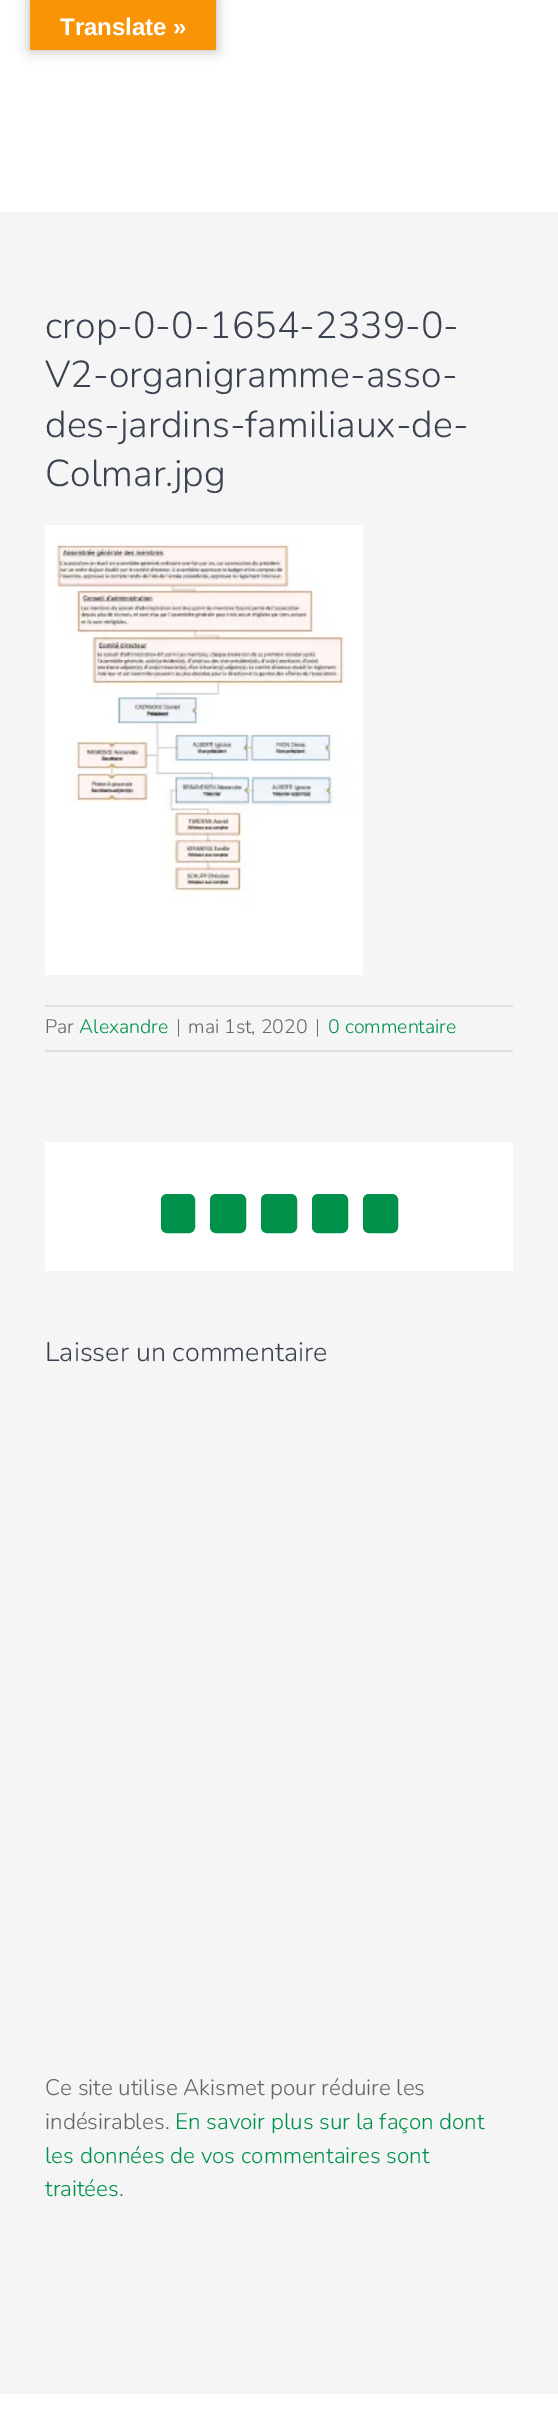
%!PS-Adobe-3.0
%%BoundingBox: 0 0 558 2427
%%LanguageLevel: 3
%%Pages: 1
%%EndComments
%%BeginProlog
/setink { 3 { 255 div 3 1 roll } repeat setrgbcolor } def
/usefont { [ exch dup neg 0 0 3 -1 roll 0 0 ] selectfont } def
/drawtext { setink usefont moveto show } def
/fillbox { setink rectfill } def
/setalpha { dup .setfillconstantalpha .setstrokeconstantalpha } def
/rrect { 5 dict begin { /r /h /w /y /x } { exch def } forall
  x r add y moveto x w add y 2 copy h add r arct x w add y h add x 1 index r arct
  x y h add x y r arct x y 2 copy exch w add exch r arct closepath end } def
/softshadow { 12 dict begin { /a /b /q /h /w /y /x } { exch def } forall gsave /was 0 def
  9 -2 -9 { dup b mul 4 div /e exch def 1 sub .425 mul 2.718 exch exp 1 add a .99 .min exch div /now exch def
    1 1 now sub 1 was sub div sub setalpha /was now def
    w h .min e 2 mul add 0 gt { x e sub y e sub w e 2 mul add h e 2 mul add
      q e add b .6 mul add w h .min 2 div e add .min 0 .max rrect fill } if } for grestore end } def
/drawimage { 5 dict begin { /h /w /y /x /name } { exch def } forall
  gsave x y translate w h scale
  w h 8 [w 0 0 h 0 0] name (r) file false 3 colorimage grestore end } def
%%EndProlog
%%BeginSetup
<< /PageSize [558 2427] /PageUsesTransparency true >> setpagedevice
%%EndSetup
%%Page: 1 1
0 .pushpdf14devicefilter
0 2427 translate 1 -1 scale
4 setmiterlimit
0 0 558 2427 245 245 245 fillbox
0 0 558 212 255 255 255 fillbox
0 0 0 setink
30 0 186 50 0 7 0.3 softshadow
30 0 186 50 248 148 6 fillbox
(Translate ») 60 35 /LiberationSans-Bold 24 255 255 255 drawtext
(crop-0-0-1654-2339-0-) 45 338 /Nunito-Light 37.5 59 66 81 drawtext
(V2-organigramme-asso-) 45 387 /Nunito-Light 37.5 59 66 81 drawtext
(des-jardins-familiaux-de-) 45 437 /Nunito-Light 37.5 59 66 81 drawtext
(Colmar.jpg) 45 486 /Nunito-Light 37.5 59 66 81 drawtext
(assets/img1.rgb) 45 525 318 450 drawimage
45 1005 468 2 224 222 222 fillbox
45 1050 468 2 224 222 222 fillbox
(Par) 45 1033 /Nunito-Light 19.5 102 102 102 drawtext
(Alexandre) 79 1033 /Nunito-Light 19.5 0 146 74 drawtext
(|) 176 1033 /Nunito-Light 19.5 102 102 102 drawtext
(mai 1st, 2020) 188 1033 /Nunito-Light 19.5 102 102 102 drawtext
(|) 315 1033 /Nunito-Light 19.5 102 102 102 drawtext
(0 commentaire) 328 1033 /Nunito-Light 19.5 0 146 74 drawtext
45 1142 468 129 255 255 255 fillbox
0 146 74 setink
162 1195 32 37 5 rrect gsave fill grestore
2 setlinewidth
stroke
211 1195 34 37 5 rrect gsave fill grestore
stroke
262 1195 34 37 5 rrect gsave fill grestore
stroke
313 1195 34 37 5 rrect gsave fill grestore
stroke
364 1195 33 37 5 rrect gsave fill grestore
stroke
(Laisser un commentaire) 45 1361 /Nunito-Light 27 59 66 81 drawtext
(Ce site utilise Akismet pour réduire les) 45 2095 /Nunito-Light 22.5 102 102 102 drawtext
(indésirables.) 45 2129 /Nunito-Light 22.5 102 102 102 drawtext
(En savoir plus sur la façon dont) 175 2129 /Nunito-Light 22.5 0 146 74 drawtext
(les données de vos commentaires sont) 45 2163 /Nunito-Light 22.5 0 146 74 drawtext
(traitées) 45 2196 /Nunito-Light 22.5 0 146 74 drawtext
(.) 119 2196 /Nunito-Light 22.5 102 102 102 drawtext
0 2394 558 33 255 255 255 fillbox
.poppdf14devicefilter showpage
%%EOF
